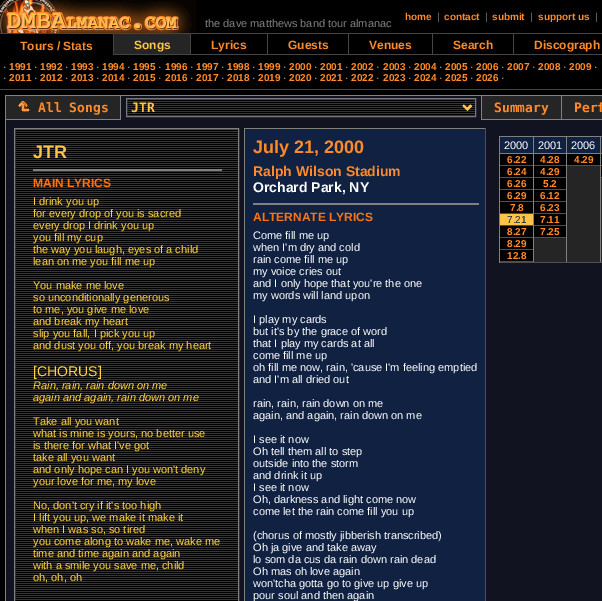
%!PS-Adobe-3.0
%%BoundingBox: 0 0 602 601
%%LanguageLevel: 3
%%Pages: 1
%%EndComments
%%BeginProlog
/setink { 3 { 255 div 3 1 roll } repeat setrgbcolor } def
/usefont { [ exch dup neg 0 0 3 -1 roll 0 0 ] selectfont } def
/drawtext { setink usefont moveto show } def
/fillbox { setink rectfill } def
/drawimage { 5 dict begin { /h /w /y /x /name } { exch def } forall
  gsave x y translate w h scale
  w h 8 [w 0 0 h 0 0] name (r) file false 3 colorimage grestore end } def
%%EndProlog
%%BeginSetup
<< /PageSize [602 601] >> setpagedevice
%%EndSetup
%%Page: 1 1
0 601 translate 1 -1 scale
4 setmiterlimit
0 0 602 601 0 0 0 fillbox
(assets/img1.rgb) 0 0 196 33 drawimage
(the dave matthews band tour almanac) 205 27 /LiberationSans-Regular 11 128 128 128 drawtext
(home) 405 20 /LiberationSans-Bold 10 255 138 41 drawtext
(|) 437 20 /LiberationSans-Regular 10 128 128 128 drawtext
(contact) 444 20 /LiberationSans-Bold 10 255 138 41 drawtext
(|) 485 20 /LiberationSans-Regular 10 128 128 128 drawtext
(submit) 492 20 /LiberationSans-Bold 10 255 138 41 drawtext
(|) 530 20 /LiberationSans-Regular 10 128 128 128 drawtext
(support us) 538 20 /LiberationSans-Bold 10 255 138 41 drawtext
(|) 595 20 /LiberationSans-Regular 10 128 128 128 drawtext
0 33 602 1 68 68 68 fillbox
(Tours / Stats) 20 50 /LiberationSans-Bold 12 255 138 41 drawtext
114 34 76 20 37 37 37 fillbox
113 54 489 1 68 68 68 fillbox
113 33 1 22 68 68 68 fillbox
(Songs) 134 49 /LiberationSans-Bold 12 255 196 73 drawtext
190 33 1 22 68 68 68 fillbox
(Lyrics) 211 49 /LiberationSans-Bold 12 255 138 41 drawtext
267 33 1 22 68 68 68 fillbox
(Guests) 288 49 /LiberationSans-Bold 12 255 138 41 drawtext
348 33 1 22 68 68 68 fillbox
(Venues) 369 49 /LiberationSans-Bold 12 255 138 41 drawtext
432 33 1 22 68 68 68 fillbox
(Search) 453 49 /LiberationSans-Bold 12 255 138 41 drawtext
513 33 1 22 68 68 68 fillbox
(Discograph) 534 49 /LiberationSans-Bold 12 255 138 41 drawtext
0 89 602 1 68 68 68 fillbox
(·) 3 70 /LiberationSans-Regular 10 255 255 255 drawtext
(1991) 9 70 /LiberationSans-Bold 10 255 138 41 drawtext
(·) 34 70 /LiberationSans-Regular 10 255 255 255 drawtext
(1992) 40 70 /LiberationSans-Bold 10 255 138 41 drawtext
(·) 65 70 /LiberationSans-Regular 10 255 255 255 drawtext
(1993) 71 70 /LiberationSans-Bold 10 255 138 41 drawtext
(·) 96 70 /LiberationSans-Regular 10 255 255 255 drawtext
(1994) 102 70 /LiberationSans-Bold 10 255 138 41 drawtext
(·) 127 70 /LiberationSans-Regular 10 255 255 255 drawtext
(1995) 133 70 /LiberationSans-Bold 10 255 138 41 drawtext
(·) 158 70 /LiberationSans-Regular 10 255 255 255 drawtext
(1996) 165 70 /LiberationSans-Bold 10 255 138 41 drawtext
(·) 190 70 /LiberationSans-Regular 10 255 255 255 drawtext
(1997) 196 70 /LiberationSans-Bold 10 255 138 41 drawtext
(·) 221 70 /LiberationSans-Regular 10 255 255 255 drawtext
(1998) 227 70 /LiberationSans-Bold 10 255 138 41 drawtext
(·) 252 70 /LiberationSans-Regular 10 255 255 255 drawtext
(1999) 258 70 /LiberationSans-Bold 10 255 138 41 drawtext
(·) 283 70 /LiberationSans-Regular 10 255 255 255 drawtext
(2000) 289 70 /LiberationSans-Bold 10 255 138 41 drawtext
(·) 314 70 /LiberationSans-Regular 10 255 255 255 drawtext
(2001) 320 70 /LiberationSans-Bold 10 255 138 41 drawtext
(·) 345 70 /LiberationSans-Regular 10 255 255 255 drawtext
(2002) 351 70 /LiberationSans-Bold 10 255 138 41 drawtext
(·) 376 70 /LiberationSans-Regular 10 255 255 255 drawtext
(2003) 383 70 /LiberationSans-Bold 10 255 138 41 drawtext
(·) 408 70 /LiberationSans-Regular 10 255 255 255 drawtext
(2004) 414 70 /LiberationSans-Bold 10 255 138 41 drawtext
(·) 439 70 /LiberationSans-Regular 10 255 255 255 drawtext
(2005) 445 70 /LiberationSans-Bold 10 255 138 41 drawtext
(·) 470 70 /LiberationSans-Regular 10 255 255 255 drawtext
(2006) 476 70 /LiberationSans-Bold 10 255 138 41 drawtext
(·) 501 70 /LiberationSans-Regular 10 255 255 255 drawtext
(2007) 507 70 /LiberationSans-Bold 10 255 138 41 drawtext
(·) 532 70 /LiberationSans-Regular 10 255 255 255 drawtext
(2008) 538 70 /LiberationSans-Bold 10 255 138 41 drawtext
(·) 563 70 /LiberationSans-Regular 10 255 255 255 drawtext
(2009) 569 70 /LiberationSans-Bold 10 255 138 41 drawtext
(·) 594 70 /LiberationSans-Regular 10 255 255 255 drawtext
(·) 3 81 /LiberationSans-Regular 10 255 255 255 drawtext
(2011) 9 81 /LiberationSans-Bold 10 255 138 41 drawtext
(·) 34 81 /LiberationSans-Regular 10 255 255 255 drawtext
(2012) 40 81 /LiberationSans-Bold 10 255 138 41 drawtext
(·) 65 81 /LiberationSans-Regular 10 255 255 255 drawtext
(2013) 71 81 /LiberationSans-Bold 10 255 138 41 drawtext
(·) 96 81 /LiberationSans-Regular 10 255 255 255 drawtext
(2014) 102 81 /LiberationSans-Bold 10 255 138 41 drawtext
(·) 127 81 /LiberationSans-Regular 10 255 255 255 drawtext
(2015) 133 81 /LiberationSans-Bold 10 255 138 41 drawtext
(·) 158 81 /LiberationSans-Regular 10 255 255 255 drawtext
(2016) 165 81 /LiberationSans-Bold 10 255 138 41 drawtext
(·) 190 81 /LiberationSans-Regular 10 255 255 255 drawtext
(2017) 196 81 /LiberationSans-Bold 10 255 138 41 drawtext
(·) 221 81 /LiberationSans-Regular 10 255 255 255 drawtext
(2018) 227 81 /LiberationSans-Bold 10 255 138 41 drawtext
(·) 252 81 /LiberationSans-Regular 10 255 255 255 drawtext
(2019) 258 81 /LiberationSans-Bold 10 255 138 41 drawtext
(·) 283 81 /LiberationSans-Regular 10 255 255 255 drawtext
(2020) 289 81 /LiberationSans-Bold 10 255 138 41 drawtext
(·) 314 81 /LiberationSans-Regular 10 255 255 255 drawtext
(2021) 320 81 /LiberationSans-Bold 10 255 138 41 drawtext
(·) 345 81 /LiberationSans-Regular 10 255 255 255 drawtext
(2022) 351 81 /LiberationSans-Bold 10 255 138 41 drawtext
(·) 376 81 /LiberationSans-Regular 10 255 255 255 drawtext
(2023) 383 81 /LiberationSans-Bold 10 255 138 41 drawtext
(·) 408 81 /LiberationSans-Regular 10 255 255 255 drawtext
(2024) 414 81 /LiberationSans-Bold 10 255 138 41 drawtext
(·) 439 81 /LiberationSans-Regular 10 255 255 255 drawtext
(2025) 445 81 /LiberationSans-Bold 10 255 138 41 drawtext
(·) 470 81 /LiberationSans-Regular 10 255 255 255 drawtext
(2026) 476 81 /LiberationSans-Bold 10 255 138 41 drawtext
(·) 501 81 /LiberationSans-Regular 10 255 255 255 drawtext
6 96 114 23 37 37 37 fillbox
5 95 597 1 128 128 128 fillbox
5 119 115 1 128 128 128 fillbox
5 95 1 25 128 128 128 fillbox
(assets/img2.rgb) 18 101 12 11 drawimage
(All Songs) 38 112 /DejaVuSansMono-Bold 13 255 138 41 drawtext
121 96 360 24 18 19 33 fillbox
120 95 1 25 128 128 128 fillbox
(assets/img3.rgb) 127 99 348 17 drawimage
118 118 118 setink
126.5 98.5 349 18 rectstroke
255 196 73 setink
2 setlinewidth
463.5 105.5 moveto 467.5 109.5 lineto 471.5 105.5 lineto stroke
(JTR) 131 112 /DejaVuSansMono-Bold 13 255 196 73 drawtext
482 96 79 23 37 37 37 fillbox
481 119 121 1 128 128 128 fillbox
481 95 1 25 128 128 128 fillbox
(Summary) 494 112 /DejaVuSansMono-Bold 13 255 138 41 drawtext
562 96 40 23 37 37 37 fillbox
561 95 1 25 128 128 128 fillbox
(Perf) 574 112 /DejaVuSansMono-Bold 13 255 138 41 drawtext
6 120 596 481 18 19 33 fillbox
5 120 1 481 128 128 128 fillbox
(assets/img4.rgb) 15 129 223 472 drawimage
1 setlinewidth
14.5 128.5 224 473 rectstroke
(JTR) 33 158 /LiberationSans-Bold 18 255 196 73 drawtext
33 169 189 2 128 128 128 fillbox
(MAIN LYRICS) 33 187 /LiberationSans-Bold 12 249 117 21 drawtext
(I drink you up) 33 205 /LiberationSans-Regular 11 255 211 75 drawtext
(for every drop of you is sacred) 33 217 /LiberationSans-Regular 11 255 211 75 drawtext
(every drop I drink you up) 33 229 /LiberationSans-Regular 11 255 211 75 drawtext
(you fill my cup) 33 241 /LiberationSans-Regular 11 255 211 75 drawtext
(the way you laugh, eyes of a child) 33 253 /LiberationSans-Regular 11 255 211 75 drawtext
(lean on me you fill me up) 33 265 /LiberationSans-Regular 11 255 211 75 drawtext
(You make me love) 33 289 /LiberationSans-Regular 11 255 211 75 drawtext
(so unconditionally generous) 33 301 /LiberationSans-Regular 11 255 211 75 drawtext
(to me, you give me love) 33 313 /LiberationSans-Regular 11 255 211 75 drawtext
(and break my heart) 33 325 /LiberationSans-Regular 11 255 211 75 drawtext
(slip you fall, I pick you up) 33 337 /LiberationSans-Regular 11 255 211 75 drawtext
(and dust you off, you break my heart) 33 349 /LiberationSans-Regular 11 255 211 75 drawtext
([CHORUS]) 33 376 /LiberationSans-Regular 14 255 211 75 drawtext
(Rain, rain, rain down on me) 33 389 /LiberationSans-Italic 11 255 211 75 drawtext
(again and again, rain down on me) 33 401 /LiberationSans-Italic 11 255 211 75 drawtext
(Take all you want) 33 425 /LiberationSans-Regular 11 255 211 75 drawtext
(what is mine is yours, no better use) 33 437 /LiberationSans-Regular 11 255 211 75 drawtext
(is there for what I've got) 33 449 /LiberationSans-Regular 11 255 211 75 drawtext
(take all you want) 33 461 /LiberationSans-Regular 11 255 211 75 drawtext
(and only hope can I you won't deny) 33 473 /LiberationSans-Regular 11 255 211 75 drawtext
(your love for me, my love) 33 485 /LiberationSans-Regular 11 255 211 75 drawtext
(No, don't cry if it's too high) 33 509 /LiberationSans-Regular 11 255 211 75 drawtext
(I lift you up, we make it make it) 33 521 /LiberationSans-Regular 11 255 211 75 drawtext
(when I was so, so tired) 33 533 /LiberationSans-Regular 11 255 211 75 drawtext
(you come along to wake me, wake me) 33 545 /LiberationSans-Regular 11 255 211 75 drawtext
(time and time again and again) 33 557 /LiberationSans-Regular 11 255 211 75 drawtext
(with a smile you save me, child) 33 569 /LiberationSans-Regular 11 255 211 75 drawtext
(oh, oh, oh) 33 581 /LiberationSans-Regular 11 255 211 75 drawtext
245 129 240 472 16 33 66 fillbox
244 128 242 1 128 128 128 fillbox
485 128 1 473 79 79 79 fillbox
244 128 1 473 128 128 128 fillbox
(July 21, 2000) 253 153 /LiberationSans-Bold 18 255 138 41 drawtext
(Ralph Wilson Stadium) 253 176 /LiberationSans-Bold 14 255 138 41 drawtext
(Orchard Park, NY) 253 192 /LiberationSans-Bold 14 255 255 255 drawtext
253 203 226 2 128 128 128 fillbox
(ALTERNATE LYRICS) 253 221 /LiberationSans-Bold 12 249 117 21 drawtext
(Come fill me up) 253 239 /LiberationSans-Regular 11 255 255 255 drawtext
(when I'm dry and cold) 253 251 /LiberationSans-Regular 11 255 255 255 drawtext
(rain come fill me up) 253 263 /LiberationSans-Regular 11 255 255 255 drawtext
(my voice cries out) 253 275 /LiberationSans-Regular 11 255 255 255 drawtext
(and I only hope that you're the one) 253 287 /LiberationSans-Regular 11 255 255 255 drawtext
(my words will land upon) 253 299 /LiberationSans-Regular 11 255 255 255 drawtext
(I play my cards) 253 323 /LiberationSans-Regular 11 255 255 255 drawtext
(but it's by the grace of word) 253 335 /LiberationSans-Regular 11 255 255 255 drawtext
(that I play my cards at all) 253 347 /LiberationSans-Regular 11 255 255 255 drawtext
(come fill me up) 253 359 /LiberationSans-Regular 11 255 255 255 drawtext
(oh fill me now, rain, 'cause I'm feeling emptied) 253 371 /LiberationSans-Regular 11 255 255 255 drawtext
(and I'm all dried out) 253 383 /LiberationSans-Regular 11 255 255 255 drawtext
(rain, rain, rain down on me) 253 407 /LiberationSans-Regular 11 255 255 255 drawtext
(again, and again, rain down on me) 253 419 /LiberationSans-Regular 11 255 255 255 drawtext
(I see it now) 253 443 /LiberationSans-Regular 11 255 255 255 drawtext
(Oh tell them all to step) 253 455 /LiberationSans-Regular 11 255 255 255 drawtext
(outside into the storm) 253 467 /LiberationSans-Regular 11 255 255 255 drawtext
(and drink it up) 253 479 /LiberationSans-Regular 11 255 255 255 drawtext
(I see it now) 253 491 /LiberationSans-Regular 11 255 255 255 drawtext
(Oh, darkness and light come now) 253 503 /LiberationSans-Regular 11 255 255 255 drawtext
(come let the rain come fill you up) 253 515 /LiberationSans-Regular 11 255 255 255 drawtext
(\(chorus of mostly jibberish transcribed\)) 253 539 /LiberationSans-Regular 11 255 255 255 drawtext
(Oh ja give and take away) 253 551 /LiberationSans-Regular 11 255 255 255 drawtext
(lo som da cus da rain down rain dead) 253 563 /LiberationSans-Regular 11 255 255 255 drawtext
(Oh mas oh love again) 253 575 /LiberationSans-Regular 11 255 255 255 drawtext
(won'tcha gotta go to give up give up) 253 587 /LiberationSans-Regular 11 255 255 255 drawtext
(pour soul and then again) 253 599 /LiberationSans-Regular 11 255 255 255 drawtext
499 136 103 1 128 128 128 fillbox
499 262 103 1 79 79 79 fillbox
499 136 1 127 128 128 128 fillbox
534 166 68 96 37 37 37 fillbox
533 137 1 125 128 128 128 fillbox
500 137 33 16 16 33 66 fillbox
500 153 33 1 128 128 128 fillbox
(2000) 504 149 /LiberationSans-Regular 11 255 255 255 drawtext
500 154 33 11 0 0 0 fillbox
500 165 33 1 79 79 79 fillbox
(6.22) 507 163 /LiberationSans-Bold 10 255 138 41 drawtext
500 166 33 11 0 0 0 fillbox
500 177 33 1 79 79 79 fillbox
(6.24) 507 175 /LiberationSans-Bold 10 255 138 41 drawtext
500 178 33 11 0 0 0 fillbox
500 189 33 1 79 79 79 fillbox
(6.26) 507 187 /LiberationSans-Bold 10 255 138 41 drawtext
500 190 33 11 0 0 0 fillbox
500 201 33 1 79 79 79 fillbox
(6.29) 507 199 /LiberationSans-Bold 10 255 138 41 drawtext
500 202 33 11 0 0 0 fillbox
500 213 33 1 79 79 79 fillbox
(7.8) 510 211 /LiberationSans-Bold 10 255 138 41 drawtext
500 214 33 11 255 196 73 fillbox
500 225 33 1 79 79 79 fillbox
(7.21) 507 223 /LiberationSans-Regular 10 16 33 66 drawtext
500 226 33 11 0 0 0 fillbox
500 237 33 1 79 79 79 fillbox
(8.27) 507 235 /LiberationSans-Bold 10 255 138 41 drawtext
500 238 33 11 0 0 0 fillbox
500 249 33 1 79 79 79 fillbox
(8.29) 507 247 /LiberationSans-Bold 10 255 138 41 drawtext
500 250 33 11 0 0 0 fillbox
500 261 33 1 79 79 79 fillbox
(12.8) 507 259 /LiberationSans-Bold 10 255 138 41 drawtext
566 137 1 125 128 128 128 fillbox
534 137 32 16 16 33 66 fillbox
534 153 32 1 128 128 128 fillbox
(2001) 538 149 /LiberationSans-Regular 11 255 255 255 drawtext
534 154 32 11 0 0 0 fillbox
534 165 32 1 79 79 79 fillbox
(4.28) 540 163 /LiberationSans-Bold 10 255 138 41 drawtext
534 166 32 11 0 0 0 fillbox
534 177 32 1 79 79 79 fillbox
(4.29) 540 175 /LiberationSans-Bold 10 255 138 41 drawtext
534 178 32 11 0 0 0 fillbox
534 189 32 1 79 79 79 fillbox
(5.2) 543 187 /LiberationSans-Bold 10 255 138 41 drawtext
534 190 32 11 0 0 0 fillbox
534 201 32 1 79 79 79 fillbox
(6.12) 540 199 /LiberationSans-Bold 10 255 138 41 drawtext
534 202 32 11 0 0 0 fillbox
534 213 32 1 79 79 79 fillbox
(6.23) 540 211 /LiberationSans-Bold 10 255 138 41 drawtext
534 214 32 11 0 0 0 fillbox
534 225 32 1 79 79 79 fillbox
(7.11) 540 223 /LiberationSans-Bold 10 255 138 41 drawtext
534 226 32 11 0 0 0 fillbox
534 237 32 1 79 79 79 fillbox
(7.25) 540 235 /LiberationSans-Bold 10 255 138 41 drawtext
600 137 1 125 128 128 128 fillbox
567 137 33 16 16 33 66 fillbox
567 153 33 1 128 128 128 fillbox
(2006) 571 149 /LiberationSans-Regular 11 255 255 255 drawtext
567 154 33 11 0 0 0 fillbox
567 165 33 1 79 79 79 fillbox
(4.29) 574 163 /LiberationSans-Bold 10 255 138 41 drawtext
601 137 1 17 16 33 66 fillbox
601 153 1 1 128 128 128 fillbox
601 154 1 24 0 0 0 fillbox
601 165 1 1 79 79 79 fillbox
601 177 1 1 79 79 79 fillbox
showpage
%%EOF
